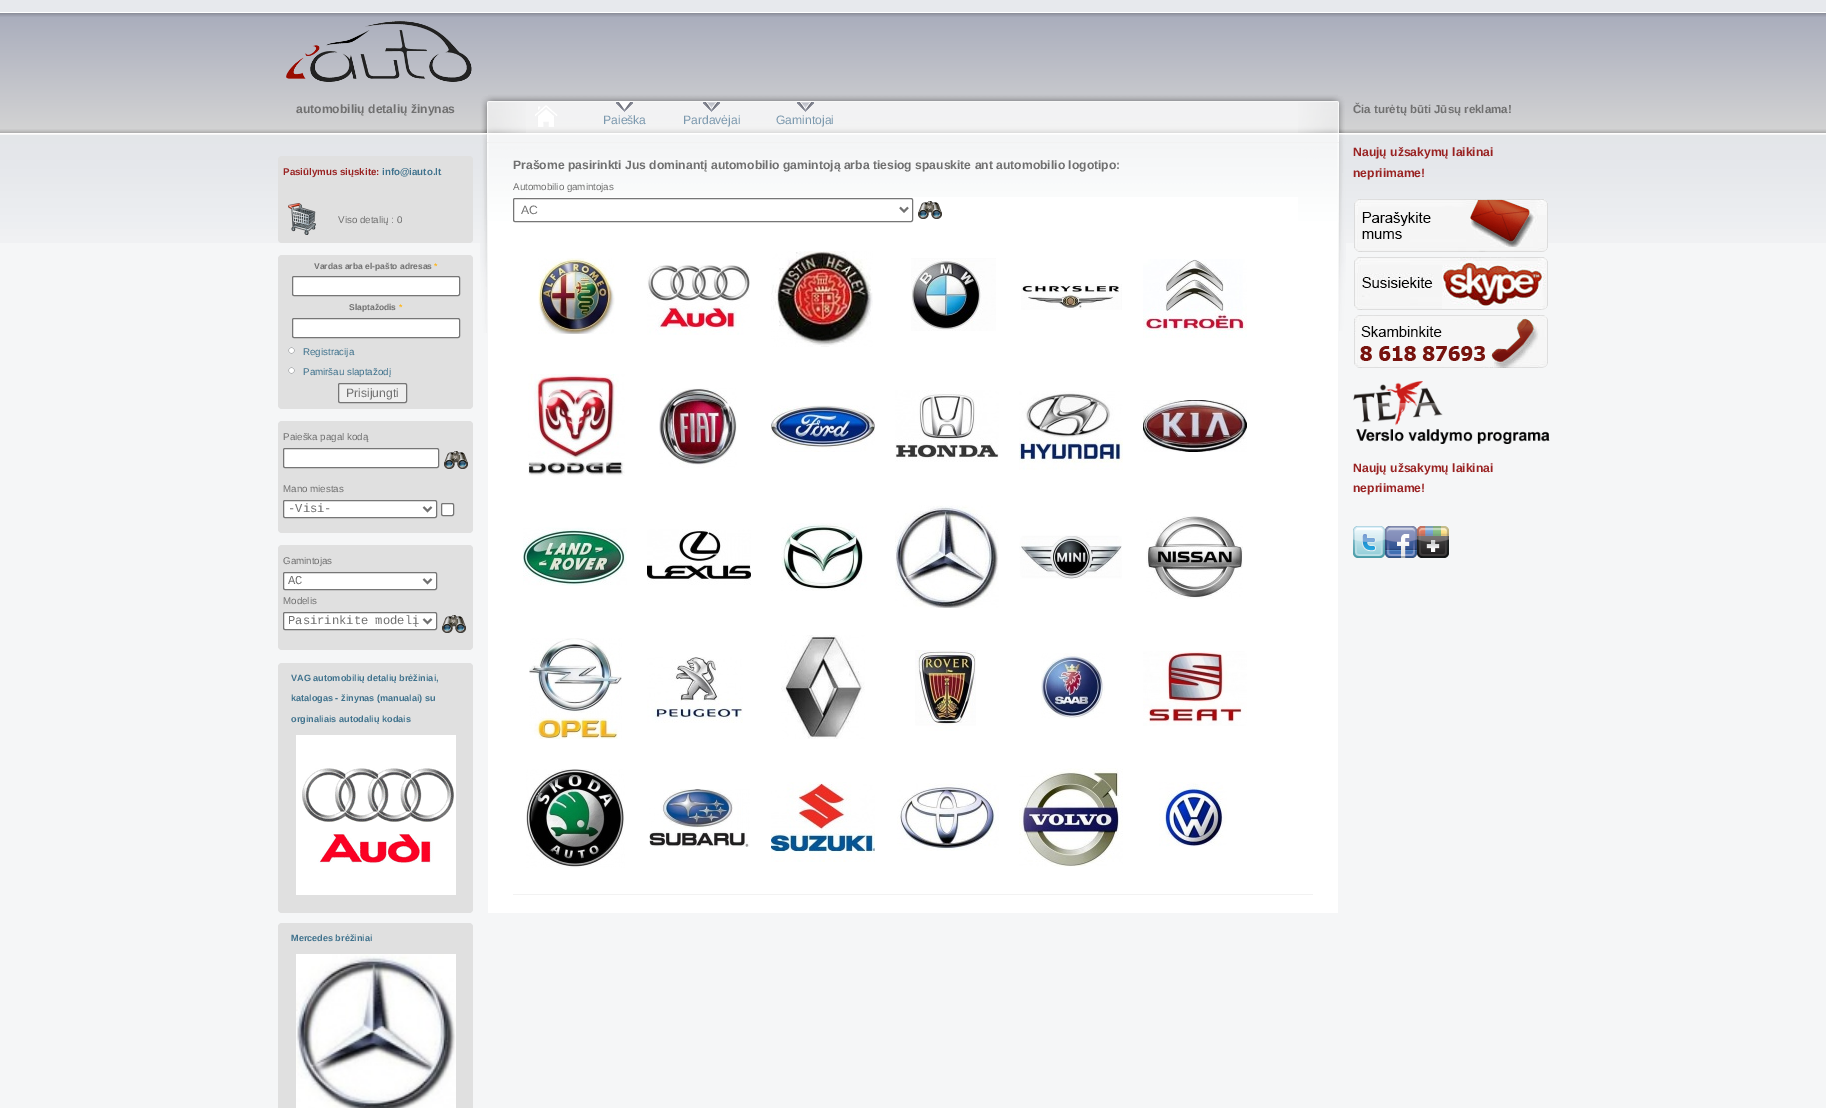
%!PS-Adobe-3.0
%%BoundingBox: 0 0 1826 1108
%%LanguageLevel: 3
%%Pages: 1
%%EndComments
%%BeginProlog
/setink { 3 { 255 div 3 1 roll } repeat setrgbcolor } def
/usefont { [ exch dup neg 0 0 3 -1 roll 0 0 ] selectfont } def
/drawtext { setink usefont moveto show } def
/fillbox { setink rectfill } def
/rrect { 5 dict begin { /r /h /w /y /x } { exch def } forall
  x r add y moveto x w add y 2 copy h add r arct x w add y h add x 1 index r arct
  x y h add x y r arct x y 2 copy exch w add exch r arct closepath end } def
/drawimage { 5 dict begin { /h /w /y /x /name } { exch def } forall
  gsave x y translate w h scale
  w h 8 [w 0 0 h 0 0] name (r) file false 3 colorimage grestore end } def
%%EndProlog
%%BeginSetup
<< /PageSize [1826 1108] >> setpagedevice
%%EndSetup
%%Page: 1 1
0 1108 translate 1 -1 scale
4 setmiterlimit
0 0 1826 1108 245 246 247 fillbox
0 0 1826 12 231 233 237 fillbox
(assets/img1.rgb) 0 12 1826 231 drawimage
(assets/img2.rgb) 286 21 186 61 drawimage
(automobilių detalių žinynas) 296 113 /LiberationSans-Bold 12.15 112 112 112 drawtext
224 224 224 setink
278 156 195 87 4 rrect fill
(Pasiūlymus siųskite:) 283 175 /LiberationSans-Bold 9.75 153 34 34 drawtext
(info@iauto.lt) 382 175 /LiberationSans-Bold 9.75 63 114 141 drawtext
(assets/img3.rgb) 288 203 28 32 drawimage
(Viso detalių : 0) 338 223 /LiberationSans-Regular 9.75 112 112 112 drawtext
224 224 224 setink
278 255 195 154 4 rrect fill
(Vardas arba el-pašto adresas) 314 269 /LiberationSans-Bold 8.5 112 112 112 drawtext
(*) 434 269 /LiberationSans-Bold 8.5 254 181 23 drawtext
255 255 255 setink
292.5 276.5 167 19 1.5 rrect gsave fill grestore
118 118 118 setink
stroke
(Slaptažodis) 349 310 /LiberationSans-Bold 8.5 112 112 112 drawtext
(*) 399 310 /LiberationSans-Bold 8.5 254 181 23 drawtext
255 255 255 setink
292.5 318.5 167 19 1.5 rrect gsave fill grestore
118 118 118 setink
stroke
(assets/img4.rgb) 288 347 7 7 drawimage
(Registracija) 303 355 /LiberationSans-Regular 9.75 63 114 141 drawtext
(assets/img4.rgb) 288 367 7 7 drawimage
(Pamiršau slaptažodį) 303 375 /LiberationSans-Regular 9.75 63 114 141 drawtext
239 239 239 setink
338.5 383.5 68 19 1.5 rrect gsave fill grestore
118 118 118 setink
stroke
(Prisijungti) 346 397 /LiberationSans-Regular 12.15 112 112 112 drawtext
224 224 224 setink
278 421 195 112 4 rrect fill
(Paieška pagal kodą) 283 440 /LiberationSans-Regular 9.75 112 112 112 drawtext
255 255 255 setink
283.5 448.5 155 19 1.5 rrect gsave fill grestore
118 118 118 setink
stroke
(assets/img5.rgb) 444 451 24 18 drawimage
(Mano miestas) 283 492 /LiberationSans-Regular 9.75 112 112 112 drawtext
255 255 255 setink
283.5 500.5 153 17 1.5 rrect gsave fill grestore
118 118 118 setink
stroke
112 112 112 setink
2 setlinewidth
423.5 507 moveto 427.5 511 lineto 431.5 507 lineto stroke
(-Visi-) 288 512 /LiberationMono-Regular 12.15 112 112 112 drawtext
255 255 255 setink
441.5 503.5 12 12 1.5 rrect gsave fill grestore
118 118 118 setink
1 setlinewidth
stroke
224 224 224 setink
278 545 195 105 4 rrect fill
(Gamintojas) 283 564 /LiberationSans-Regular 9.75 112 112 112 drawtext
255 255 255 setink
283.5 572.5 153 17 1.5 rrect gsave fill grestore
118 118 118 setink
stroke
112 112 112 setink
2 setlinewidth
423.5 579 moveto 427.5 583 lineto 431.5 579 lineto stroke
(AC) 288 584 /LiberationMono-Regular 12.15 112 112 112 drawtext
(Modelis) 283 604 /LiberationSans-Regular 9.75 112 112 112 drawtext
255 255 255 setink
283.5 612.5 153 17 1.5 rrect gsave fill grestore
118 118 118 setink
1 setlinewidth
stroke
112 112 112 setink
2 setlinewidth
423.5 619 moveto 427.5 623 lineto 431.5 619 lineto stroke
(Pasirinkite modelį) 288 624 /LiberationMono-Regular 12.15 112 112 112 drawtext
(assets/img5.rgb) 442 615 24 18 drawimage
224 224 224 setink
278 663 195 250 4 rrect fill
(VAG automobilių detalių brėžiniai,) 291 681 /LiberationSans-Bold 9.1 63 114 141 drawtext
(katalogas - žinynas \(manualai\) su) 291 701 /LiberationSans-Bold 9.1 63 114 141 drawtext
(orginaliais autodalių kodais) 291 722 /LiberationSans-Bold 9.1 63 114 141 drawtext
(assets/img6.rgb) 296 735 160 160 drawimage
224 224 224 setink
278 923 195 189 4 rrect fill
(Mercedes brėžiniai) 291 941 /LiberationSans-Bold 9.1 63 114 141 drawtext
(assets/img7.rgb) 296 954 160 154 drawimage
488 197 850 716 255 255 255 fillbox
(assets/img8.rgb) 488 92 850 105 drawimage
(assets/img9.rgb) 1298 96 48 235 drawimage
(assets/img10.rgb) 480 96 46 237 drawimage
(assets/img11.rgb) 535 105 23 22 drawimage
(assets/img12.rgb) 616 101 17 11 drawimage
(Paieška) 603 124 /LiberationSans-Regular 12.15 124 153 174 drawtext
(assets/img13.rgb) 703 101 17 11 drawimage
(Pardavėjai) 683 124 /LiberationSans-Regular 12.15 124 153 174 drawtext
(assets/img13.rgb) 797 101 17 11 drawimage
(Gamintojai) 776 124 /LiberationSans-Regular 12.15 124 153 174 drawtext
487 142 852 1 242 242 242 fillbox
513 894 800 1 242 242 242 fillbox
(Prašome pasirinkti Jus dominantį automobilio gamintoją arba tiesiog spauskite ant automobilio logotipo:) 513 169 /LiberationSans-Bold 12.15 112 112 112 drawtext
(Automobilio gamintojas) 513 190 /LiberationSans-Regular 9.75 112 112 112 drawtext
255 255 255 setink
513.5 198.5 399 23 1.5 rrect gsave fill grestore
118 118 118 setink
1 setlinewidth
stroke
112 112 112 setink
2 setlinewidth
900 207.5 moveto 904 211.5 lineto 908 207.5 lineto stroke
(AC) 521 214 /LiberationSans-Regular 12.15 112 112 112 drawtext
(assets/img14.rgb) 918 201 24 18 drawimage
(assets/img15.rgb) 538 258 77 76 drawimage
(assets/img16.rgb) 647 265 103 70 drawimage
(assets/img17.rgb) 771 251 102 96 drawimage
(assets/img18.rgb) 911 258 85 73 drawimage
(assets/img19.rgb) 1021 284 101 26 drawimage
(assets/img20.rgb) 1143 259 104 79 drawimage
(assets/img21.rgb) 528 374 97 102 drawimage
(assets/img22.rgb) 659 388 78 80 drawimage
(assets/img23.rgb) 771 405 104 47 drawimage
(assets/img24.rgb) 895 390 104 72 drawimage
(assets/img25.rgb) 1019 391 104 79 drawimage
(assets/img26.rgb) 1143 400 104 52 drawimage
(assets/img27.rgb) 523 527 104 59 drawimage
(assets/img28.rgb) 647 529 104 56 drawimage
(assets/img29.rgb) 781 523 86 68 drawimage
(assets/img30.rgb) 895 505 104 103 drawimage
(assets/img31.rgb) 1019 535 103 44 drawimage
(assets/img32.rgb) 1146 516 97 83 drawimage
(assets/img33.rgb) 529 638 93 101 drawimage
(assets/img34.rgb) 647 657 96 66 drawimage
(assets/img35.rgb) 781 635 84 104 drawimage
(assets/img36.rgb) 915 650 61 81 drawimage
(assets/img37.rgb) 1041 653 64 66 drawimage
(assets/img38.rgb) 1143 651 104 75 drawimage
(assets/img39.rgb) 526 769 99 99 drawimage
(assets/img40.rgb) 649 789 101 58 drawimage
(assets/img41.rgb) 771 782 104 80 drawimage
(assets/img42.rgb) 897 783 102 68 drawimage
(assets/img43.rgb) 1019 768 104 99 drawimage
(assets/img44.rgb) 1159 782 68 65 drawimage
(Čia turėtų būti Jūsų reklama!) 1353 113 /LiberationSans-Bold 11.5 112 112 112 drawtext
(Naujų užsakymų laikinai) 1353 156 /LiberationSans-Bold 12.15 153 34 34 drawtext
(nepriimame!) 1353 177 /LiberationSans-Bold 12.15 153 34 34 drawtext
(assets/img45.rgb) 1354 199 194 53 drawimage
(assets/img46.rgb) 1354 257 194 53 drawimage
(assets/img47.rgb) 1354 315 194 53 drawimage
(assets/img48.rgb) 1353 381 197 63 drawimage
(Naujų užsakymų laikinai) 1353 472 /LiberationSans-Bold 12.15 153 34 34 drawtext
(nepriimame!) 1353 492 /LiberationSans-Bold 12.15 153 34 34 drawtext
(assets/img49.rgb) 1353 526 32 32 drawimage
(assets/img50.rgb) 1385 526 32 32 drawimage
(assets/img51.rgb) 1417 526 32 32 drawimage
showpage
%%EOF
